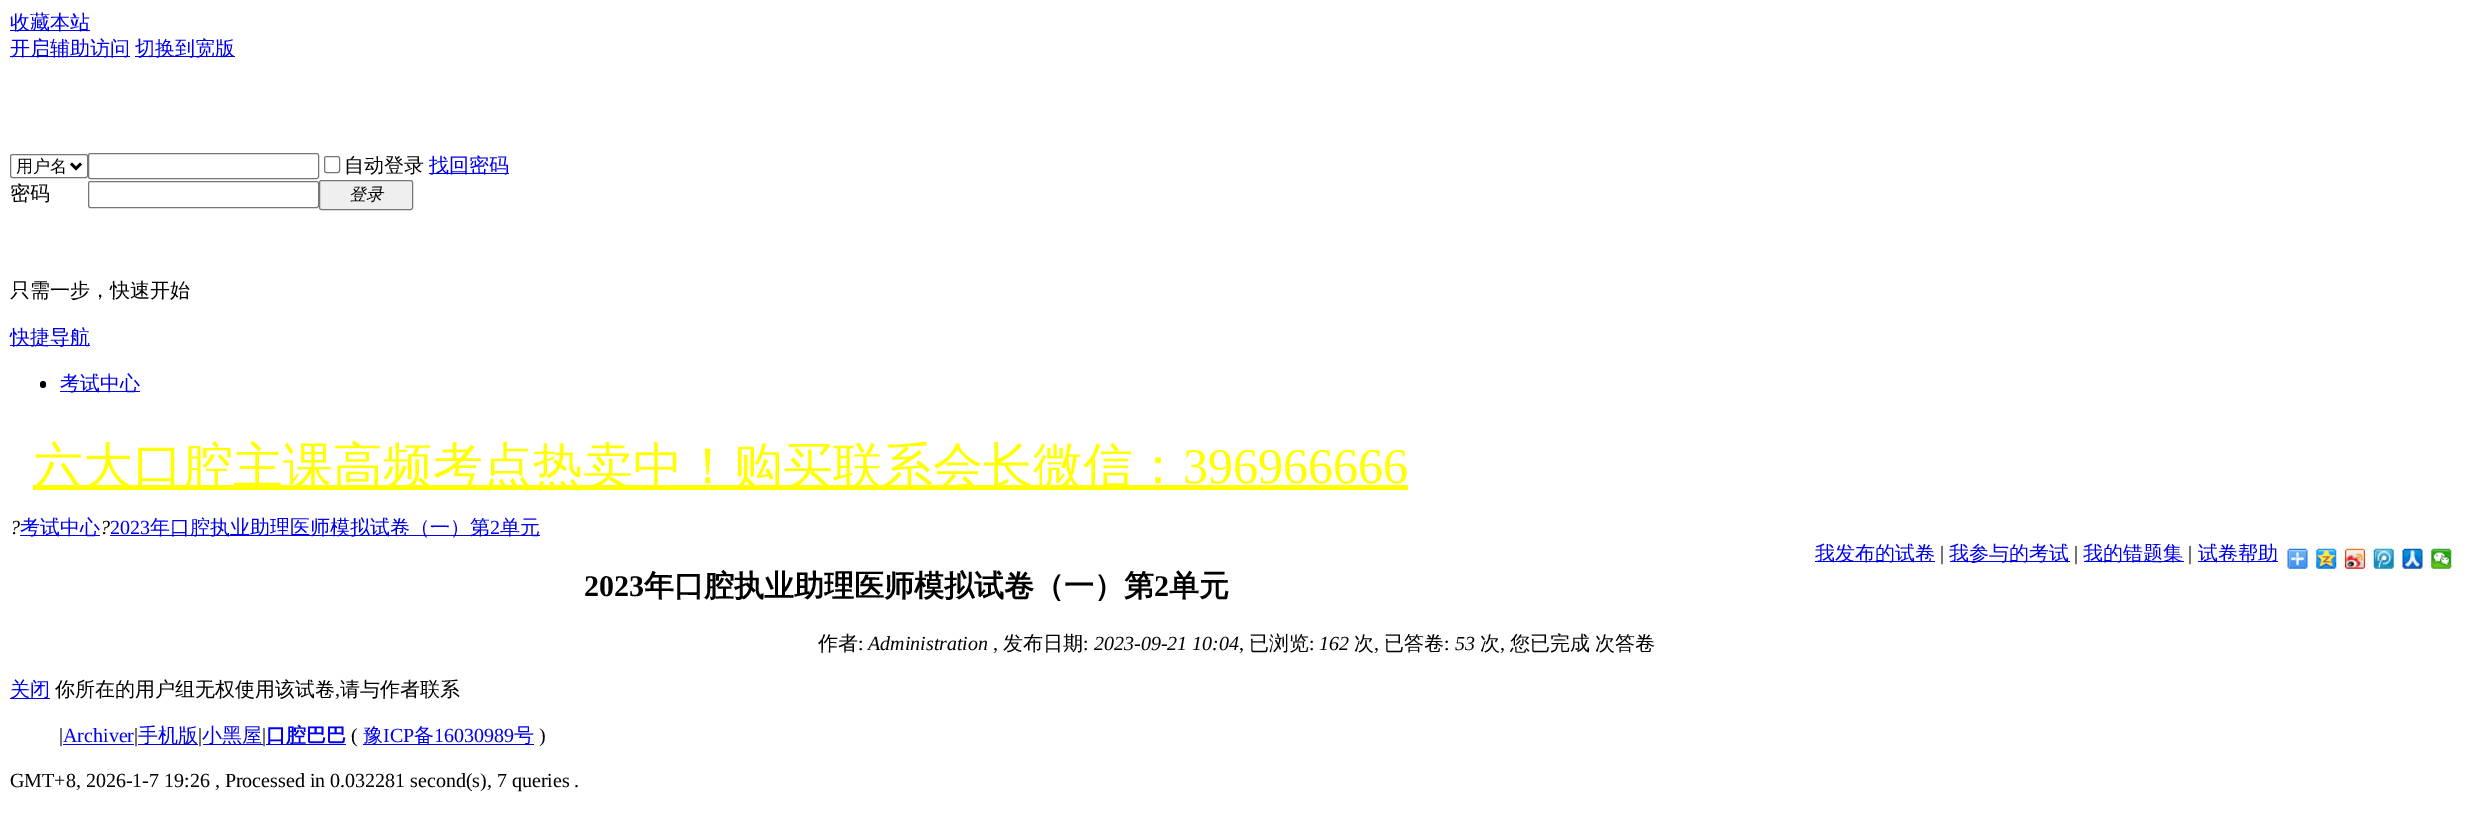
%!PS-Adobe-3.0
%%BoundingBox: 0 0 2472 818
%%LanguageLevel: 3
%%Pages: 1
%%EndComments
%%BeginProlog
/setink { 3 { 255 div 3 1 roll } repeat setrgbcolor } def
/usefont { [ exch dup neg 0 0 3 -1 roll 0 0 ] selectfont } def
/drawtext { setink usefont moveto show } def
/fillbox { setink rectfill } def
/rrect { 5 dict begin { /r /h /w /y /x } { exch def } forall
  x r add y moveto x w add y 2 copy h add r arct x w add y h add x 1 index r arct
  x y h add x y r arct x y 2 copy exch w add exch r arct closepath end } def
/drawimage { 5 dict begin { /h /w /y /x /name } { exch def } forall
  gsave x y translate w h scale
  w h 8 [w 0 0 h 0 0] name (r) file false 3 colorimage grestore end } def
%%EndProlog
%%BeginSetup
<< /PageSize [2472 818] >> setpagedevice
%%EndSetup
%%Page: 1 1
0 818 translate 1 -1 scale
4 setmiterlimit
0 0 2472 818 255 255 255 fillbox
10 30 80 1 0 0 238 fillbox
(收藏本站) 10 29 /WenQuanYiZenHei-Medium 20 0 0 238 drawtext
10 56 120 1 0 0 238 fillbox
(开启辅助访问) 10 55 /WenQuanYiZenHei-Medium 20 0 0 238 drawtext
135 56 100 1 0 0 238 fillbox
(切换到宽版) 135 55 /WenQuanYiZenHei-Medium 20 0 0 238 drawtext
118 118 118 setink
10.5 154.5 77 23 2 rrect stroke
0 0 0 setink
2.5 setlinewidth
71 163.5 moveto 76 168.5 lineto 81 163.5 lineto stroke
(用户名) 16 172 /WenQuanYiZenHei-Medium 17 0 0 0 drawtext
118 118 118 setink
1 setlinewidth
88.5 153.5 230 25 2 rrect stroke
324.5 156.5 15 16 2 rrect stroke
(自动登录) 344 172 /WenQuanYiZenHei-Medium 20 0 0 0 drawtext
429 173 80 1 0 0 238 fillbox
(找回密码) 429 172 /WenQuanYiZenHei-Medium 20 0 0 238 drawtext
(密码) 10 200 /WenQuanYiZenHei-Medium 20 0 0 0 drawtext
118 118 118 setink
88.5 181.5 230 26 2 rrect stroke
239 239 239 setink
319.5 180.5 93 29 2 rrect gsave fill grestore
118 118 118 setink
stroke
(登录) 349 200 /WenQuanYiZenHei-MediumItalic 17 0 0 0 drawtext
(只需一步，快速开始) 10 297 /WenQuanYiZenHei-Medium 20 0 0 0 drawtext
10 345 80 1 0 0 238 fillbox
(快捷导航) 10 344 /WenQuanYiZenHei-Medium 20 0 0 238 drawtext
0 0 0 setink
40 381 6 7 3 rrect fill
60 391 80 1 0 0 238 fillbox
(考试中心) 60 390 /WenQuanYiZenHei-Medium 20 0 0 238 drawtext
33 485 1375 5 255 255 0 fillbox
(六大口腔主课高频考点热卖中！购买联系会长微信：) 33 483 /WenQuanYiZenHei-Medium 50 255 255 0 drawtext
(396966666) 1183 483 /LiberationSerif-Regular 50 255 255 0 drawtext
(?) 10 534 /LiberationSerif-Italic 20 0 0 0 drawtext
20 535 80 1 0 0 238 fillbox
(考试中心) 20 534 /WenQuanYiZenHei-Medium 20 0 0 238 drawtext
(?) 100 534 /LiberationSerif-Italic 20 0 0 0 drawtext
(2023) 110 534 /LiberationSerif-Regular 20 0 0 238 drawtext
110 535 430 1 0 0 238 fillbox
(年口腔执业助理医师模拟试卷（一）第) 150 534 /WenQuanYiZenHei-Medium 20 0 0 238 drawtext
(2) 490 534 /LiberationSerif-Regular 20 0 0 238 drawtext
(单元) 500 534 /WenQuanYiZenHei-Medium 20 0 0 238 drawtext
1815 561 120 1 0 0 238 fillbox
(我发布的试卷) 1815 560 /WenQuanYiZenHei-Medium 20 0 0 238 drawtext
(|) 1940 560 /LiberationSerif-Regular 20 0 0 0 drawtext
1950 561 120 1 0 0 238 fillbox
(我参与的考试) 1949 560 /WenQuanYiZenHei-Medium 20 0 0 238 drawtext
(|) 2074 560 /LiberationSerif-Regular 20 0 0 0 drawtext
2084 561 100 1 0 0 238 fillbox
(我的错题集) 2083 560 /WenQuanYiZenHei-Medium 20 0 0 238 drawtext
(|) 2188 560 /LiberationSerif-Regular 20 0 0 0 drawtext
2198 561 80 1 0 0 238 fillbox
(试卷帮助) 2198 560 /WenQuanYiZenHei-Medium 20 0 0 238 drawtext
(assets/img1.rgb) 2287 548 21 21 drawimage
(assets/img2.rgb) 2316 548 21 21 drawimage
(assets/img3.rgb) 2345 548 20 21 drawimage
(assets/img4.rgb) 2373 548 21 21 drawimage
(assets/img5.rgb) 2402 548 21 21 drawimage
(assets/img6.rgb) 2431 548 21 21 drawimage
(2023) 584 596 /LiberationSerif-Bold 30 0 0 0 drawtext
(年口腔执业助理医师模拟试卷（一）第) 644 596 /WenQuanYiZenHei-Bold 30 0 0 0 drawtext
(2) 1154 596 /LiberationSerif-Bold 30 0 0 0 drawtext
(单元) 1169 596 /WenQuanYiZenHei-Bold 30 0 0 0 drawtext
(作者) 818 650 /WenQuanYiZenHei-Medium 20 0 0 0 drawtext
(:) 858 650 /LiberationSerif-Regular 20 0 0 0 drawtext
(Administration) 868 650 /LiberationSerif-Italic 20 0 0 0 drawtext
(,) 993 650 /LiberationSerif-Regular 20 0 0 0 drawtext
(发布日期) 1003 650 /WenQuanYiZenHei-Medium 20 0 0 0 drawtext
(:) 1083 650 /LiberationSerif-Regular 20 0 0 0 drawtext
(2023-09-21 10:04) 1094 650 /LiberationSerif-Italic 20 0 0 0 drawtext
(,) 1239 650 /LiberationSerif-Regular 20 0 0 0 drawtext
(已浏览) 1249 650 /WenQuanYiZenHei-Medium 20 0 0 0 drawtext
(:) 1309 650 /LiberationSerif-Regular 20 0 0 0 drawtext
(162) 1319 650 /LiberationSerif-Italic 20 0 0 0 drawtext
(次) 1354 650 /WenQuanYiZenHei-Medium 20 0 0 0 drawtext
(,) 1374 650 /LiberationSerif-Regular 20 0 0 0 drawtext
(已答卷) 1384 650 /WenQuanYiZenHei-Medium 20 0 0 0 drawtext
(:) 1444 650 /LiberationSerif-Regular 20 0 0 0 drawtext
(53) 1455 650 /LiberationSerif-Italic 20 0 0 0 drawtext
(次) 1480 650 /WenQuanYiZenHei-Medium 20 0 0 0 drawtext
(,) 1500 650 /LiberationSerif-Regular 20 0 0 0 drawtext
(您已完成) 1510 650 /WenQuanYiZenHei-Medium 20 0 0 0 drawtext
(次答卷) 1595 650 /WenQuanYiZenHei-Medium 20 0 0 0 drawtext
10 698 40 1 0 0 238 fillbox
(关闭) 10 696 /WenQuanYiZenHei-Medium 20 0 0 238 drawtext
(你所在的用户组无权使用该试卷) 55 696 /WenQuanYiZenHei-Medium 20 0 0 0 drawtext
(,) 335 696 /LiberationSerif-Regular 20 0 0 0 drawtext
(请与作者联系) 340 696 /WenQuanYiZenHei-Medium 20 0 0 0 drawtext
(|) 59 742 /LiberationSerif-Regular 20 0 0 0 drawtext
(Archiver) 63 742 /LiberationSerif-Regular 20 0 0 238 drawtext
63 744 71 1 0 0 238 fillbox
(|) 134 742 /LiberationSerif-Regular 20 0 0 0 drawtext
138 744 60 1 0 0 238 fillbox
(手机版) 138 742 /WenQuanYiZenHei-Medium 20 0 0 238 drawtext
(|) 198 742 /LiberationSerif-Regular 20 0 0 0 drawtext
203 744 60 1 0 0 238 fillbox
(小黑屋) 202 742 /WenQuanYiZenHei-Medium 20 0 0 238 drawtext
(|) 262 742 /LiberationSerif-Regular 20 0 0 0 drawtext
266 744 80 1 0 0 238 fillbox
(口腔巴巴) 266 742 /WenQuanYiZenHei-Bold 20 0 0 238 drawtext
(\() 351 742 /LiberationSerif-Regular 20 0 0 0 drawtext
363 744 171 1 0 0 238 fillbox
(豫) 363 742 /WenQuanYiZenHei-Medium 20 0 0 238 drawtext
(ICP) 383 742 /LiberationSerif-Regular 20 0 0 238 drawtext
(备) 414 742 /WenQuanYiZenHei-Medium 20 0 0 238 drawtext
(16030989) 434 742 /LiberationSerif-Regular 20 0 0 238 drawtext
(号) 514 742 /WenQuanYiZenHei-Medium 20 0 0 238 drawtext
(\)) 539 742 /LiberationSerif-Regular 20 0 0 0 drawtext
(GMT+8, 2026-1-7 19:26 , Processed in 0.032281 second\(s\), 7 queries .) 10 787 /LiberationSerif-Regular 20 0 0 0 drawtext
showpage
%%EOF
